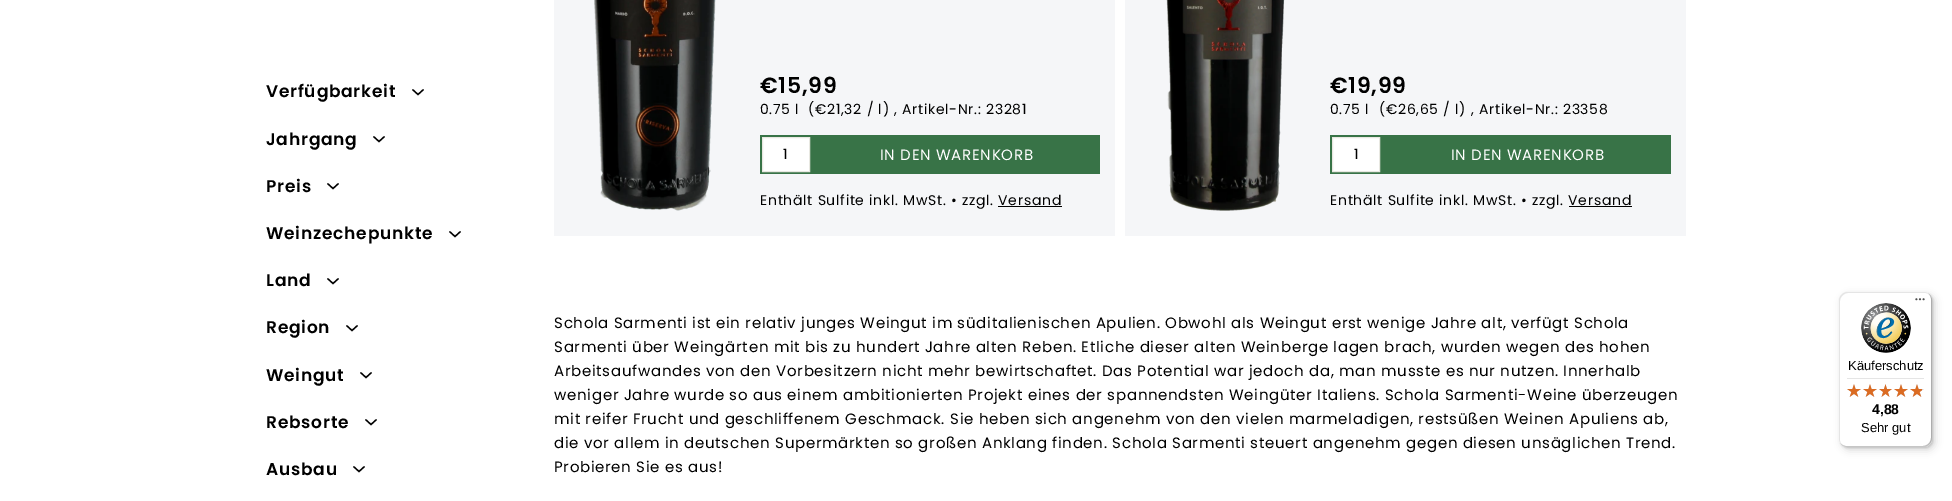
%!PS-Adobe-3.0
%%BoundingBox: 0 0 1952 501
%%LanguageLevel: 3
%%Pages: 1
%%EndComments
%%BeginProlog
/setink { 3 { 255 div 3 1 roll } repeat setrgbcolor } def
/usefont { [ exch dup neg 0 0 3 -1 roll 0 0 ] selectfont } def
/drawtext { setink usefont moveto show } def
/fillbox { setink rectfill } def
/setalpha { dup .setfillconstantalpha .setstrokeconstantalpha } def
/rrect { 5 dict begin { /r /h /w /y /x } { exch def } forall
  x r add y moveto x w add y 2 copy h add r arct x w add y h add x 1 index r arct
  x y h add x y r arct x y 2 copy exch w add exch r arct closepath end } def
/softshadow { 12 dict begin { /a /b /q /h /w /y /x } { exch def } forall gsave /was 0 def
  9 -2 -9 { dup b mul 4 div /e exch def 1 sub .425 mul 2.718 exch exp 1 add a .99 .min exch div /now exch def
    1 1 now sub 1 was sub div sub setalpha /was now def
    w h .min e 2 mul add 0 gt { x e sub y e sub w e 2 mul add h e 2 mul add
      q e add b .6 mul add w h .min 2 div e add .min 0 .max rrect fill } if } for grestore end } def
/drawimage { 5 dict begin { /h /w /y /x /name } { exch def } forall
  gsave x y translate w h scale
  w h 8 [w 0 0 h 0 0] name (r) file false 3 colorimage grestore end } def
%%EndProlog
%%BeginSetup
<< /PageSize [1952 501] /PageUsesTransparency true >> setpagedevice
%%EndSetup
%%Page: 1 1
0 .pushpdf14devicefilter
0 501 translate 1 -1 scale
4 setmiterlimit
0 0 1952 501 255 255 255 fillbox
/Poppins-SemiBold 17 usefont
0 0 0 setink
266 97 moveto 0.8 0 (Verfügbarkeit) ashow
1.3 setlinewidth
412.5 89.5 moveto 418 94.5 lineto 423.5 89.5 lineto stroke
266 145 moveto 0.8 0 (Jahrgang) ashow
373.5 136.5 moveto 379 141.5 lineto 384.5 136.5 lineto stroke
266 192 moveto 0.8 0 (Preis) ashow
327.5 183.5 moveto 333 188.5 lineto 338.5 183.5 lineto stroke
266 239 moveto 0.8 0 (Weinzechepunkte) ashow
449.5 231.5 moveto 455 236.5 lineto 460.5 231.5 lineto stroke
266 286 moveto 0.8 0 (Land) ashow
327.5 278.5 moveto 333 283.5 lineto 338.5 278.5 lineto stroke
266 333 moveto 0.8 0 (Region) ashow
346.5 325.5 moveto 352 330.5 lineto 357.5 325.5 lineto stroke
266 381 moveto 0.8 0 (Weingut) ashow
360.5 372.5 moveto 366 377.5 lineto 371.5 372.5 lineto stroke
266 428 moveto 0.8 0 (Rebsorte) ashow
365.5 419.5 moveto 371 424.5 lineto 376.5 419.5 lineto stroke
266 475 moveto 0.8 0 (Ausbau) ashow
353.5 466.5 moveto 359 471.5 lineto 364.5 466.5 lineto stroke
554 0 561 236 245 246 248 fillbox
(assets/img1.rgb) 594 0 122 211 drawimage
/Poppins-SemiBold 22 usefont
0 0 0 setink
760 93 moveto 0.7 0 (€15,99) ashow
/Poppins-Regular 14 usefont
760 114 moveto 0.7 0 (0.75 l) ashow
808 114 moveto 0.7 0 (\(€21,32 / l\) , Artikel-Nr.: 23281) ashow
760 135 340 39 56 115 71 fillbox
255 255 255 setink
762.5 137.5 moveto 809.5 137.5 lineto 809.5 171.5 lineto 762.5 171.5 lineto closepath gsave fill grestore
232 232 225 setink
1 setlinewidth
stroke
0 0 0 setink
783 159 moveto 0.7 0 (1) ashow
/Poppins-Regular 15 usefont
255 255 255 setink
880 160 moveto 0.7 0 (IN DEN WARENKORB) ashow
/Poppins-Regular 14 usefont
0 0 0 setink
760 205 moveto 0.7 0 (Enthält Sulfite inkl. MwSt. • zzgl. Versand) ashow
998 206 64 1 0 0 0 fillbox
1125 0 561 236 245 246 248 fillbox
(assets/img2.rgb) 1166 0 119 211 drawimage
/Poppins-SemiBold 22 usefont
0 0 0 setink
1330 93 moveto 0.7 0 (€19,99) ashow
/Poppins-Regular 14 usefont
1330 114 moveto 0.7 0 (0.75 l) ashow
1379 114 moveto 0.7 0 (\(€26,65 / l\) , Artikel-Nr.: 23358) ashow
1330 135 341 39 56 115 71 fillbox
255 255 255 setink
1332.5 137.5 moveto 1379.5 137.5 lineto 1379.5 171.5 lineto 1332.5 171.5 lineto closepath gsave fill grestore
232 232 225 setink
stroke
0 0 0 setink
1354 159 moveto 0.7 0 (1) ashow
/Poppins-Regular 15 usefont
255 255 255 setink
1451 160 moveto 0.7 0 (IN DEN WARENKORB) ashow
/Poppins-Regular 14 usefont
0 0 0 setink
1330 205 moveto 0.7 0 (Enthält Sulfite inkl. MwSt. • zzgl. Versand) ashow
1569 206 63 1 0 0 0 fillbox
/Poppins-Regular 15 usefont
554 328 moveto 0.7 0 (Schola Sarmenti ist ein relativ junges Weingut im süditalienischen Apulien. Obwohl als Weingut erst wenige Jahre alt, verfügt Schola) ashow
554 352 moveto 0.7 0 (Sarmenti über Weingärten mit bis zu hundert Jahre alten Reben. Etliche dieser alten Weinberge lagen brach, wurden wegen des hohen) ashow
554 376 moveto 0.7 0 (Arbeitsaufwandes von den Vorbesitzern nicht mehr bewirtschaftet. Das Potential war jedoch da, man musste es nur nutzen. Innerhalb) ashow
554 400 moveto 0.7 0 (weniger Jahre wurde so aus einem ambitionierten Projekt eines der spannendsten Weingüter Italiens. Schola Sarmenti-Weine überzeugen) ashow
554 424 moveto 0.7 0 (mit reifer Frucht und geschliffenem Geschmack. Sie heben sich angenehm von den vielen marmeladigen, restsüßen Weinen Apuliens ab,) ashow
554 448 moveto 0.7 0 (die vor allem in deutschen Supermärkten so großen Anklang finden. Schola Sarmenti steuert angenehm gegen diesen unsäglichen Trend.) ashow
554 472 moveto 0.7 0 (Probieren Sie es aus!) ashow
1842 295 93 155 8 4 0.15 softshadow
1840 293 93 155 8 1 0.15 softshadow
255 255 255 setink
1839 292 93 155 8 rrect fill
229 229 229 setink
1848 293 moveto 1925 293 lineto 1927 293 1929 294 1931 296 curveto 1929 294 1927 292 1924 292 curveto 1847 292 lineto 1843 292 1839 296 1839 300 curveto 1839 439 lineto 1839 442 1841 444 1843 446 curveto 1841 444 1840 442 1840 440 curveto 1840 301 lineto 1840 297 1844 293 1848 293 curveto closepath fill
204 204 204 setink
1840 443 moveto 1842 445 1844 447 1847 447 curveto 1924 447 lineto 1928 447 1932 443 1932 439 curveto 1932 300 lineto 1932 297 1930 295 1928 293 curveto 1930 295 1931 297 1931 299 curveto 1931 438 lineto 1931 442 1927 446 1923 446 curveto 1846 446 lineto 1844 446 1842 445 1840 443 curveto closepath fill
0.2 setalpha
50 50 50 setink
1841 444 moveto 1842 446 1845 447 1847 447 curveto 1924 447 lineto 1928 447 1932 443 1932 439 curveto 1932 300 lineto 1932 298 1931 295 1929 294 curveto 1930 295 1931 297 1931 299 curveto 1931 438 lineto 1931 443 1928 446 1923 446 curveto 1846 446 lineto 1844 446 1842 445 1841 444 curveto closepath fill
1 setalpha
(assets/img3.rgb) 1915 298 10 3 drawimage
0.3 setalpha
255 255 255 setink
1841 444 moveto 1842 446 1845 447 1847 447 curveto 1924 447 lineto 1928 447 1932 443 1932 439 curveto 1932 438 lineto 1932 443 1928 446 1924 446 curveto 1846 446 lineto 1844 446 1842 445 1841 444 curveto closepath fill
1 setalpha
(assets/img4.rgb) 1861 303 50 50 drawimage
(Käuferschutz) 1848 370 /LiberationSans-Regular 13 0 0 0 drawtext
1847 378 77 1 229 229 229 fillbox
(assets/img5.rgb) 1847 384 14 13 drawimage
(assets/img5.rgb) 1863 384 14 13 drawimage
(assets/img6.rgb) 1879 384 13 13 drawimage
(assets/img5.rgb) 1894 384 14 13 drawimage
(assets/img5.rgb) 1910 384 14 13 drawimage
(assets/img7.rgb) 1847 384 14 13 drawimage
(assets/img7.rgb) 1863 384 14 13 drawimage
(assets/img8.rgb) 1879 384 13 13 drawimage
(assets/img7.rgb) 1894 384 14 13 drawimage
(assets/img9.rgb) 1910 384 12 13 drawimage
(4,88) 1872 414 /LiberationSans-Bold 14 0 0 0 drawtext
(Sehr gut) 1861 432 /LiberationSans-Regular 13 0 0 0 drawtext
.poppdf14devicefilter showpage
%%EOF
